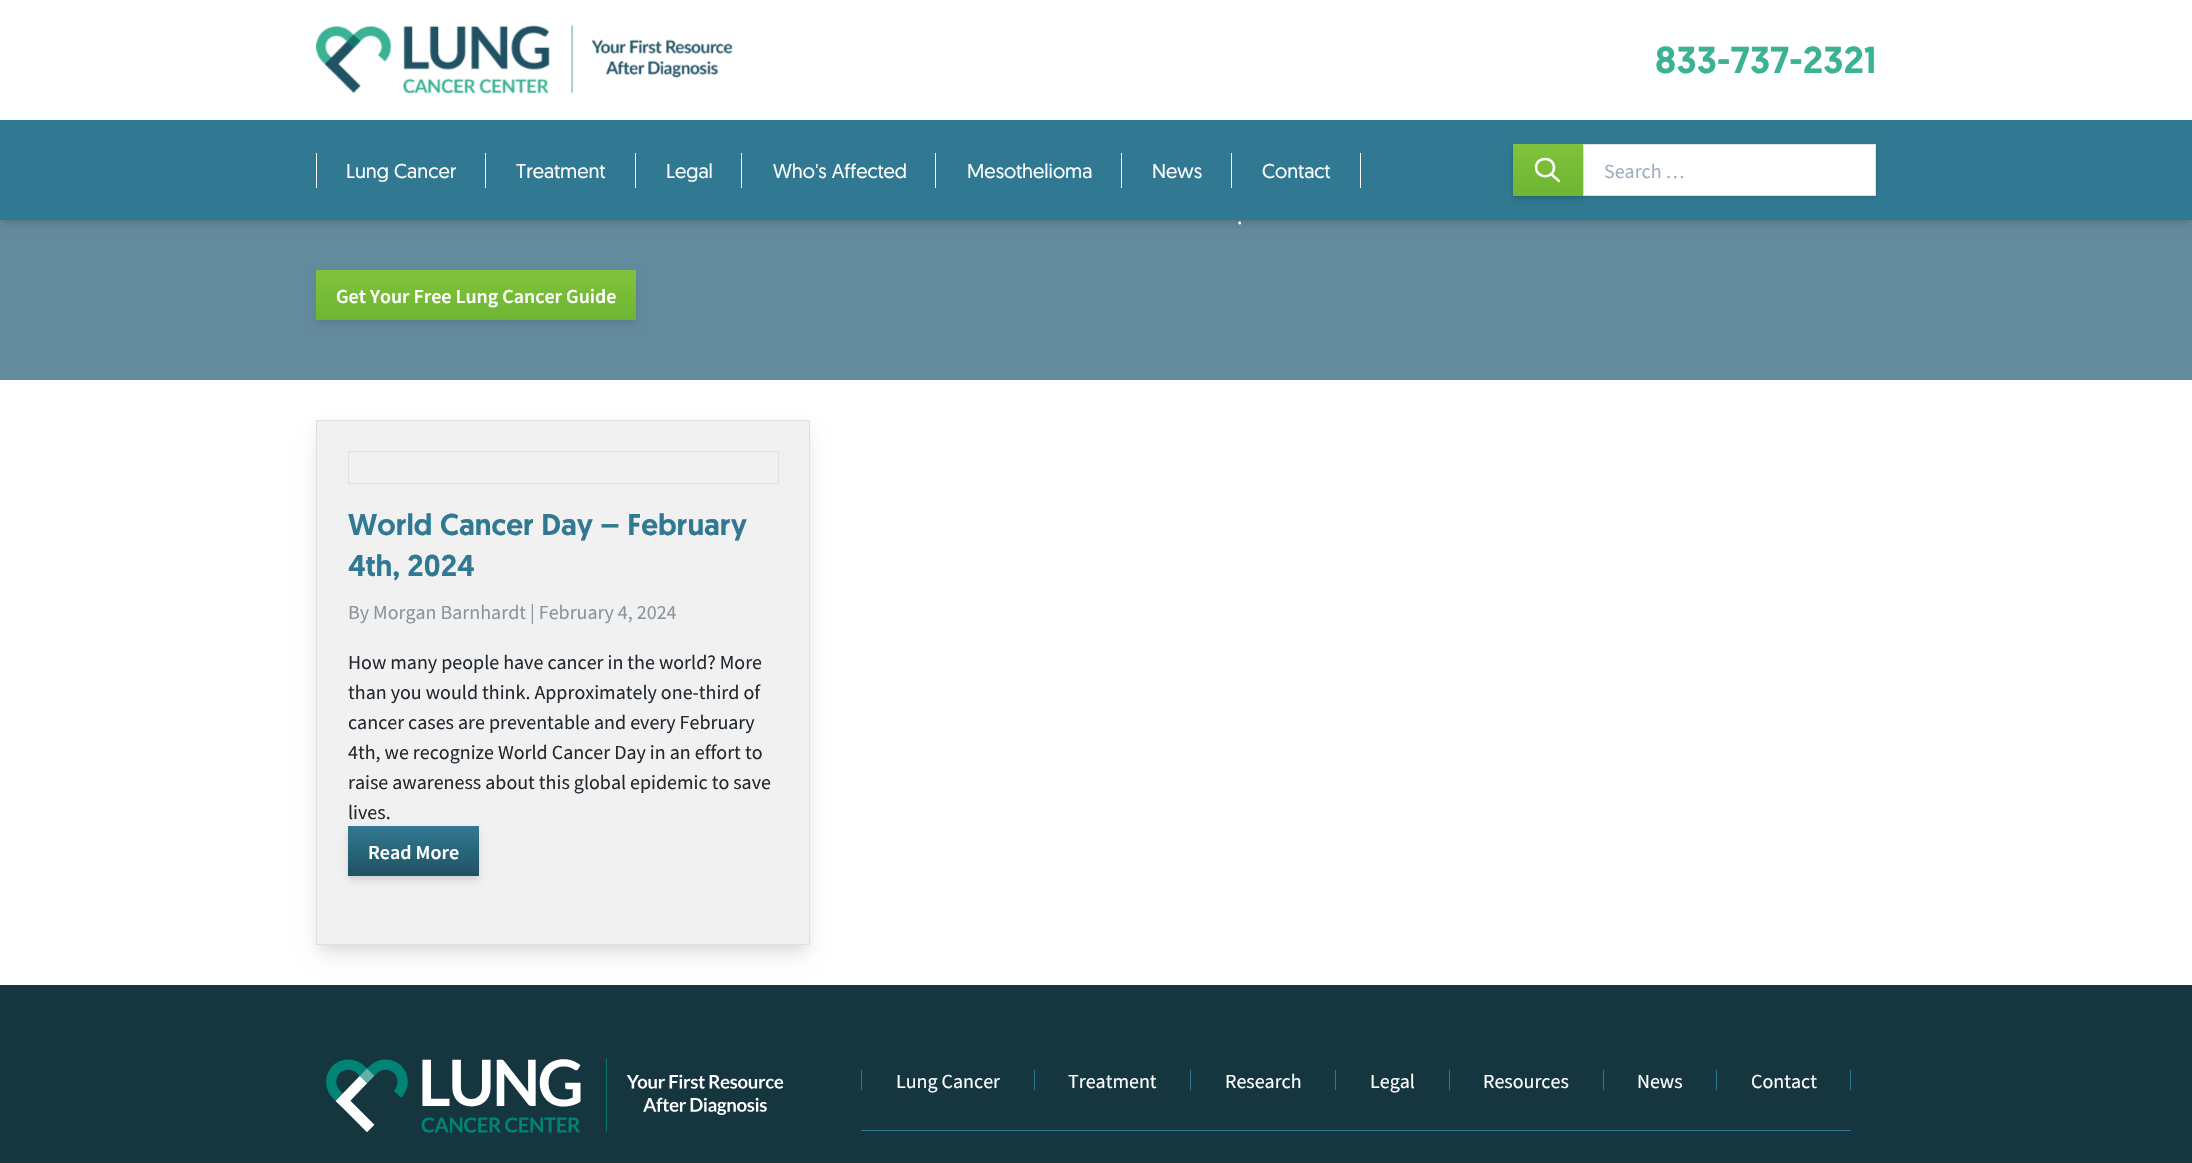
#include "include/core/SkBlurTypes.h"
#include "include/core/SkCanvas.h"
#include "include/core/SkData.h"
#include "include/core/SkFont.h"
#include "include/core/SkFontMgr.h"
#include "include/core/SkImage.h"
#include "include/core/SkMaskFilter.h"
#include "include/core/SkPaint.h"
#include "include/core/SkPathBuilder.h"
#include "include/core/SkTextBlob.h"
#include "include/effects/SkDashPathEffect.h"
#include "include/effects/SkGradientShader.h"
#include "include/utils/SkParsePath.h"

extern sk_sp<SkFontMgr> fontMgr;

void draw(SkCanvas* canvas) {
  SkPaint p;
  p.setAntiAlias(true);
  canvas->clear(SK_ColorWHITE);
  p.setColor(SkColorSetRGB(99, 138, 157));
  canvas->drawRect(SkRect::MakeLTRB(0, 220, 2192, 380), p);
  p.setColor(SkColorSetARGB(15, 0, 0, 0));
  p.setMaskFilter(SkMaskFilter::MakeBlur(kNormal_SkBlurStyle, 2.5f));
  canvas->drawRect(SkRect::MakeLTRB(1, 4, 2191, 221), p);
  p.setMaskFilter(nullptr);
  p.setColor(SkColorSetARGB(26, 0, 0, 0));
  p.setMaskFilter(SkMaskFilter::MakeBlur(kNormal_SkBlurStyle, 4));
  canvas->drawRect(SkRect::MakeLTRB(1, 6, 2191, 224), p);
  p.setMaskFilter(nullptr);
  p.setColor(SK_ColorWHITE);
  canvas->drawRect(SkRect::MakeLTRB(0, 0, 2192, 120), p);
  canvas->drawImageRect(SkImages::DeferredFromEncodedData(SkData::MakeFromFileName("images/1.png")), SkRect::MakeLTRB(316, 24, 733, 94), SkSamplingOptions());
  p.setColor(SkColorSetRGB(49, 121, 146));
  canvas->drawRect(SkRect::MakeLTRB(0, 120, 2192, 220), p);
  p.setColor(SK_ColorWHITE);
  canvas->drawRect(SkRect::MakeLTRB(316, 153, 317, 188), p);
  canvas->drawRect(SkRect::MakeLTRB(485, 153, 486, 188), p);
  canvas->drawRect(SkRect::MakeLTRB(635, 153, 636, 188), p);
  canvas->drawRect(SkRect::MakeLTRB(741, 153, 742, 188), p);
  canvas->drawRect(SkRect::MakeLTRB(935, 153, 936, 188), p);
  canvas->drawRect(SkRect::MakeLTRB(1121, 153, 1122, 188), p);
  canvas->drawRect(SkRect::MakeLTRB(1231, 153, 1232, 188), p);
  canvas->drawRect(SkRect::MakeLTRB(1360, 153, 1361, 188), p);
  p.setColor(SkColorSetARGB(26, 0, 0, 0));
  p.setMaskFilter(SkMaskFilter::MakeBlur(kNormal_SkBlurStyle, 2));
  canvas->drawRect(SkRect::MakeLTRB(1513, 145, 1876, 198), p);
  p.setMaskFilter(nullptr);
  p.setColor(SK_ColorWHITE);
  canvas->drawRect(SkRect::MakeLTRB(1583.5f, 144.5f, 1875.5f, 195.5f), p);
  p.setStyle(SkPaint::kStroke_Style);
  p.setStrokeWidth(1);
  p.setColor(SkColorSetRGB(218, 225, 231));
  canvas->drawRect(SkRect::MakeLTRB(1583.5f, 144.5f, 1875.5f, 195.5f), p);
  p.setStyle(SkPaint::kFill_Style);
  p.setColor(SkColorSetARGB(26, 0, 0, 0));
  p.setMaskFilter(SkMaskFilter::MakeBlur(kNormal_SkBlurStyle, 4));
  canvas->drawRect(SkRect::MakeLTRB(1514, 150, 1581, 200), p);
  p.setMaskFilter(nullptr);
  {
    const SkColor colors[] = {SkColorSetRGB(129, 195, 59), SkColorSetRGB(109, 181, 51)};
    const float stops[] = {0, 1};
    const SkPoint ends[] = {{1548, 144}, {1548, 196}};
    p.setShader(SkGradientShader::MakeLinear(ends, colors, stops, 2, SkTileMode::kClamp));
    p.setAlpha(255);
  }
  canvas->drawRect(SkRect::MakeLTRB(1513, 144, 1583, 196), p);
  p.setStyle(SkPaint::kStroke_Style);
  p.setStrokeWidth(2.5f);
  p.setStrokeCap(SkPaint::kRound_Cap);
  p.setStrokeJoin(SkPaint::kRound_Join);
  p.setShader(nullptr);
  p.setColor(SK_ColorWHITE);
  canvas->drawPath(SkPathBuilder().moveTo(1559, 181).lineTo(1551, 174).moveTo(1554, 167.5f).cubicTo(1554, 179, 1536.5f, 179, 1536, 167.5f).cubicTo(1536, 156, 1554, 156, 1554, 167.5f).close().detach(), p);
  p.setStyle(SkPaint::kFill_Style);
  p.setColor(SkColorSetARGB(26, 0, 0, 0));
  p.setMaskFilter(SkMaskFilter::MakeBlur(kNormal_SkBlurStyle, 4));
  canvas->drawRect(SkRect::MakeLTRB(318, 276, 635, 324), p);
  p.setMaskFilter(nullptr);
  {
    const SkColor colors[] = {SkColorSetRGB(129, 195, 59), SkColorSetRGB(109, 181, 51)};
    const float stops[] = {0, 1};
    const SkPoint ends[] = {{476, 270}, {476, 320}};
    p.setShader(SkGradientShader::MakeLinear(ends, colors, stops, 2, SkTileMode::kClamp));
    p.setAlpha(255);
  }
  canvas->drawRect(SkRect::MakeLTRB(316, 270, 636, 320), p);
  p.setShader(nullptr);
  p.setColor(SkColorSetARGB(13, 0, 0, 0));
  p.setMaskFilter(SkMaskFilter::MakeBlur(kNormal_SkBlurStyle, 4));
  canvas->drawRect(SkRect::MakeLTRB(319, 428, 808, 948), p);
  p.setMaskFilter(nullptr);
  p.setColor(SkColorSetARGB(26, 0, 0, 0));
  p.setMaskFilter(SkMaskFilter::MakeBlur(kNormal_SkBlurStyle, 9.5f));
  canvas->drawRect(SkRect::MakeLTRB(320, 436, 806, 954), p);
  p.setMaskFilter(nullptr);
  p.setColor(SkColorSetRGB(241, 241, 241));
  canvas->drawRect(SkRect::MakeLTRB(316.5f, 420.5f, 809.5f, 944.5f), p);
  p.setStyle(SkPaint::kStroke_Style);
  p.setStrokeWidth(1);
  p.setStrokeCap(SkPaint::kButt_Cap);
  p.setStrokeJoin(SkPaint::kMiter_Join);
  p.setColor(SkColorSetRGB(218, 225, 231));
  canvas->drawRect(SkRect::MakeLTRB(316.5f, 420.5f, 809.5f, 944.5f), p);
  canvas->drawRect(SkRect::MakeLTRB(348.5f, 451.5f, 778.5f, 483.5f), p);
  p.setStyle(SkPaint::kFill_Style);
  p.setColor(SkColorSetARGB(15, 0, 0, 0));
  p.setMaskFilter(SkMaskFilter::MakeBlur(kNormal_SkBlurStyle, 2.5f));
  canvas->drawRect(SkRect::MakeLTRB(349, 830, 478, 878), p);
  p.setMaskFilter(nullptr);
  p.setColor(SkColorSetARGB(26, 0, 0, 0));
  p.setMaskFilter(SkMaskFilter::MakeBlur(kNormal_SkBlurStyle, 4));
  canvas->drawRect(SkRect::MakeLTRB(349, 833, 478, 880), p);
  p.setMaskFilter(nullptr);
  {
    const SkColor colors[] = {SkColorSetRGB(49, 121, 145), SkColorSetRGB(32, 82, 99)};
    const float stops[] = {0, 1};
    const SkPoint ends[] = {{413, 826}, {413, 876}};
    p.setShader(SkGradientShader::MakeLinear(ends, colors, stops, 2, SkTileMode::kClamp));
    p.setAlpha(255);
  }
  canvas->drawRect(SkRect::MakeLTRB(348, 826, 479, 876), p);
  p.setShader(nullptr);
  p.setColor(SkColorSetRGB(21, 54, 63));
  canvas->drawRect(SkRect::MakeLTRB(0, 985, 2192, 1163), p);
  canvas->drawImageRect(SkImages::DeferredFromEncodedData(SkData::MakeFromFileName("images/2.png")), SkRect::MakeLTRB(326, 1058, 784, 1133), SkSamplingOptions());
  p.setColor(SkColorSetRGB(49, 121, 146));
  canvas->drawRect(SkRect::MakeLTRB(861, 1130, 1851, 1131), p);
  canvas->drawRect(SkRect::MakeLTRB(1034, 1070, 1035, 1090), p);
  canvas->drawRect(SkRect::MakeLTRB(861, 1070, 862, 1090), p);
  canvas->drawRect(SkRect::MakeLTRB(1190, 1070, 1191, 1090), p);
  canvas->drawRect(SkRect::MakeLTRB(1335, 1070, 1336, 1090), p);
  canvas->drawRect(SkRect::MakeLTRB(1449, 1070, 1450, 1090), p);
  canvas->drawRect(SkRect::MakeLTRB(1603, 1070, 1604, 1090), p);
  canvas->drawRect(SkRect::MakeLTRB(1716, 1070, 1717, 1090), p);
  canvas->drawRect(SkRect::MakeLTRB(1850, 1070, 1851, 1090), p);
  SkFont font1(fontMgr->matchFamilyStyle("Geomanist", SkFontStyle(500, SkFontStyle::kNormal_Width, SkFontStyle::kUpright_Slant)), 37.5f);
  font1.setSubpixel(true);
  p.setColor(SkColorSetRGB(59, 178, 148));
  canvas->drawString("833-737-2321", 1655, 73, font1, p);
  SkFont font2(fontMgr->matchFamilyStyle("Geomanist", SkFontStyle::Normal()), 20);
  font2.setSubpixel(true);
  p.setColor(SK_ColorWHITE);
  canvas->drawString("Lung Cancer", 346, 178, font2, p);
  canvas->drawString("Treatment", 516, 178, font2, p);
  canvas->drawString("Legal", 666, 178, font2, p);
  canvas->drawString("Who's Affected", 773, 178, font2, p);
  canvas->drawString("Mesothelioma", 967, 178, font2, p);
  canvas->drawString("News", 1152, 178, font2, p);
  canvas->drawString("Contact", 1262, 178, font2, p);
  SkFont font3(fontMgr->matchFamilyStyle("Source Sans Pro", SkFontStyle::Normal()), 20);
  font3.setSubpixel(true);
  p.setColor(SkColorSetRGB(160, 174, 192));
  canvas->drawString("Search …", 1604, 178, font3, p);
  SkFont font4(fontMgr->matchFamilyStyle("Source Sans Pro", SkFontStyle::Normal()), 22);
  font4.setSubpixel(true);
  p.setColor(SK_ColorWHITE);
  canvas->drawString(".", 1237, 224, font4, p);
  SkFont font5(fontMgr->matchFamilyStyle("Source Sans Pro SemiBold", SkFontStyle(600, SkFontStyle::kNormal_Width, SkFontStyle::kUpright_Slant)), 20);
  font5.setSubpixel(true);
  canvas->drawString("Get Your Free Lung Cancer Guide", 336, 303, font5, p);
  SkFont font6(fontMgr->matchFamilyStyle("Geomanist", SkFontStyle(500, SkFontStyle::kNormal_Width, SkFontStyle::kUpright_Slant)), 30);
  font6.setSubpixel(true);
  p.setColor(SkColorSetRGB(49, 121, 146));
  canvas->drawString("World Cancer Day – February", 348, 535, font6, p);
  canvas->drawString("4th, 2024", 348, 576, font6, p);
  p.setColor(SkColorSetRGB(135, 149, 161));
  canvas->drawString("By Morgan Barnhardt | February 4, 2024", 348, 619, font3, p);
  p.setColor(SkColorSetRGB(34, 41, 47));
  canvas->drawString("How many people have cancer in the world? More", 348, 669, font3, p);
  canvas->drawString("than you would think. Approximately one-third of", 348, 699, font3, p);
  canvas->drawString("cancer cases are preventable and every February", 348, 729, font3, p);
  canvas->drawString("4th, we recognize World Cancer Day in an effort to", 348, 759, font3, p);
  canvas->drawString("raise awareness about this global epidemic to save", 348, 789, font3, p);
  canvas->drawString("lives.", 348, 819, font3, p);
  p.setColor(SK_ColorWHITE);
  canvas->drawString("Read More", 368, 859, font5, p);
  canvas->drawString("Lung Cancer", 896, 1088, font3, p);
  canvas->drawString("Treatment", 1068, 1088, font3, p);
  canvas->drawString("Research", 1225, 1088, font3, p);
  canvas->drawString("Legal", 1370, 1088, font3, p);
  canvas->drawString("Resources", 1483, 1088, font3, p);
  canvas->drawString("News", 1637, 1088, font3, p);
  canvas->drawString("Contact", 1751, 1088, font3, p);
}
